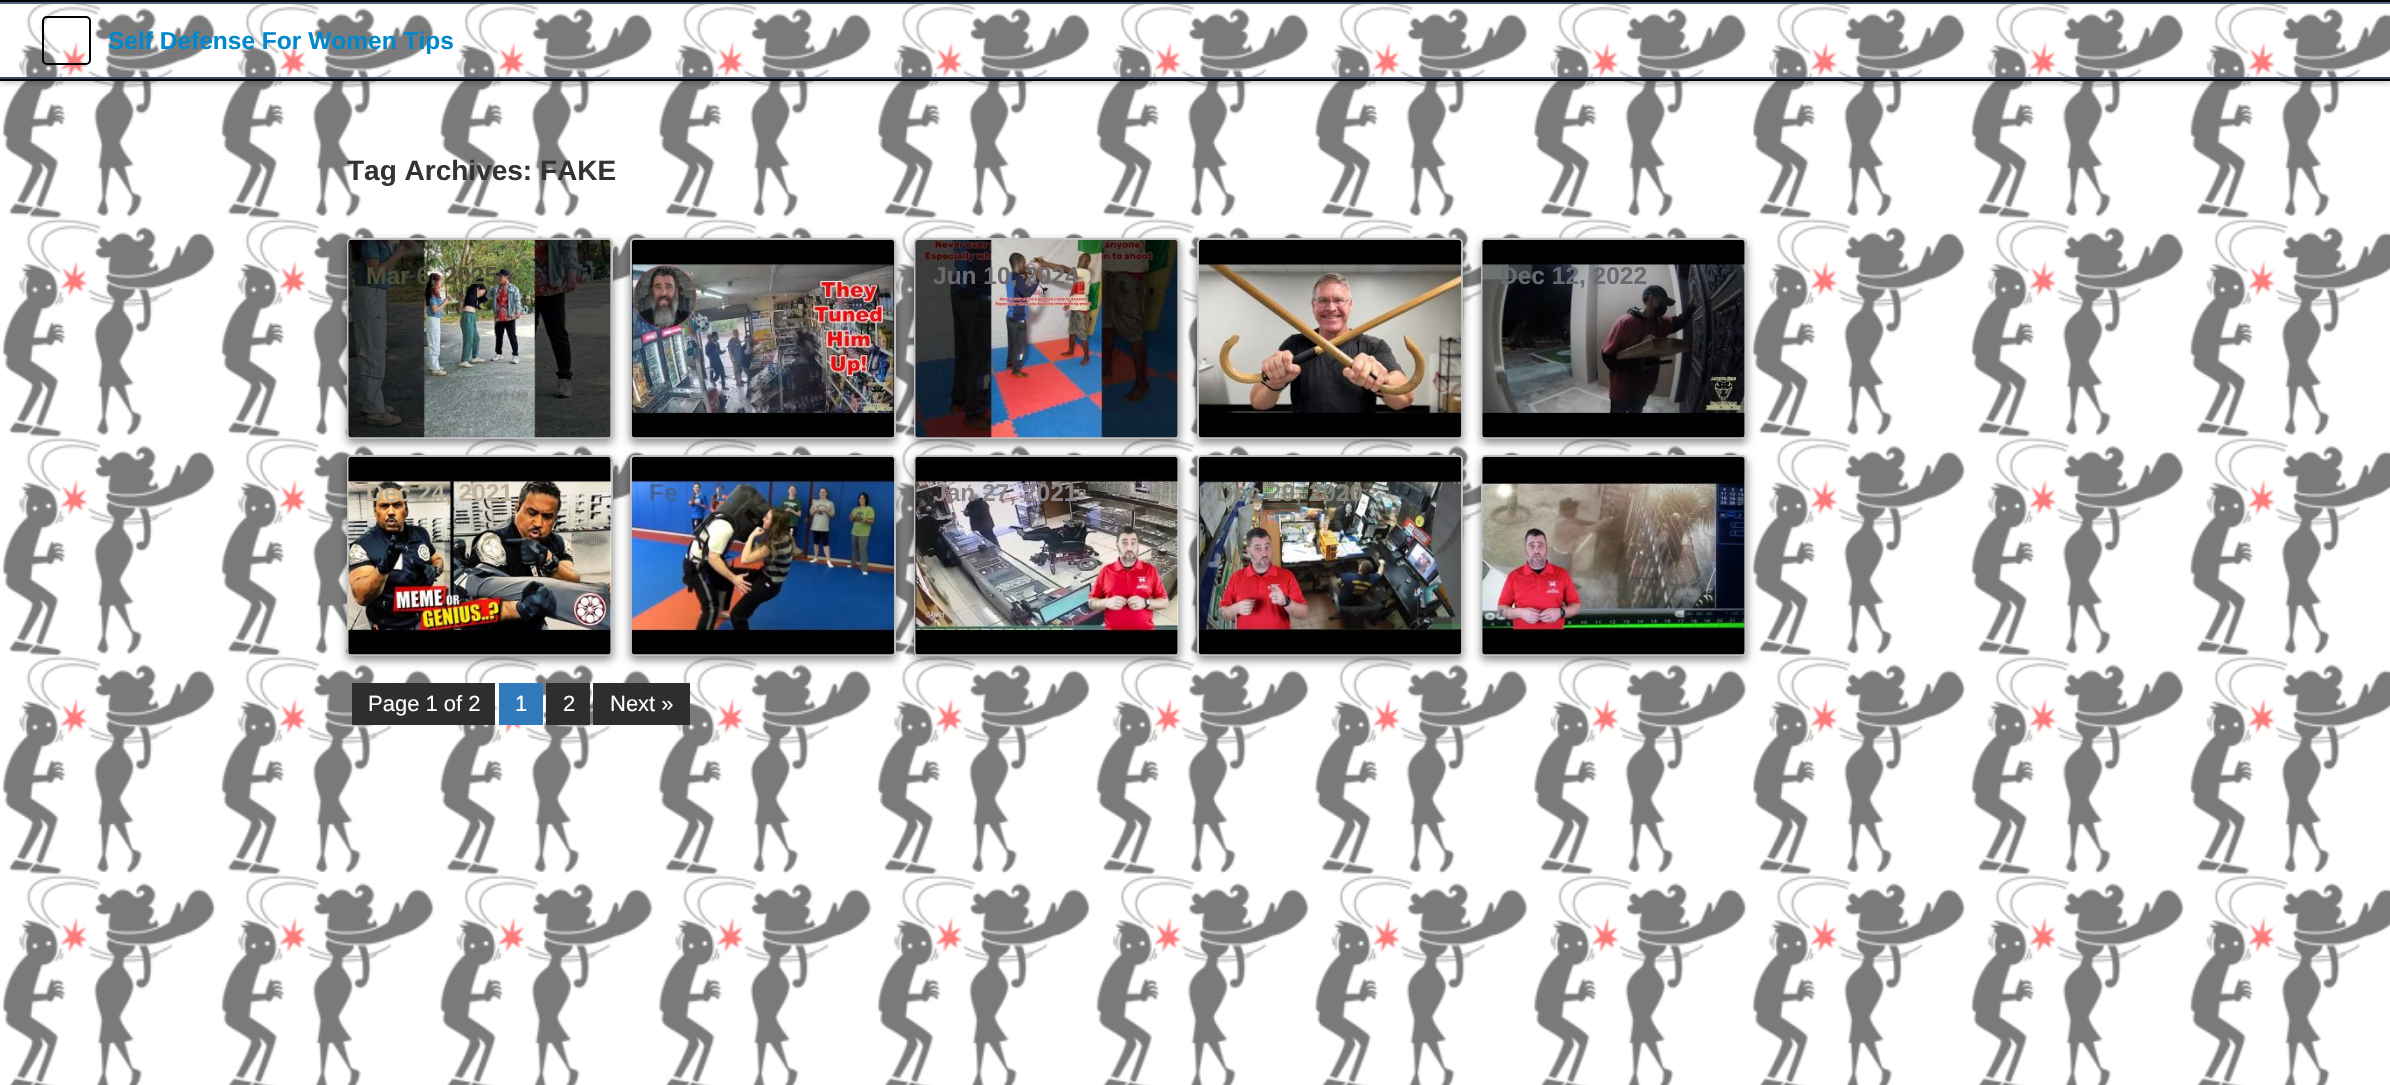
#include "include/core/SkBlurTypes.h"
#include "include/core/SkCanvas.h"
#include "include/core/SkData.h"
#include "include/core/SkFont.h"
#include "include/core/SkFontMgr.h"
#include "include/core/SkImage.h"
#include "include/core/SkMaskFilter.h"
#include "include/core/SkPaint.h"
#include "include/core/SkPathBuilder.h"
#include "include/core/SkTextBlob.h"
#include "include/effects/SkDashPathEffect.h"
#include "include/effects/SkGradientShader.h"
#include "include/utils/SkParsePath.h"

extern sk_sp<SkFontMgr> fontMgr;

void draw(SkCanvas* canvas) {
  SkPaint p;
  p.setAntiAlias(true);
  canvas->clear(SK_ColorWHITE);
  canvas->drawImageRect(SkImages::DeferredFromEncodedData(SkData::MakeFromFileName("images/1.png")), SkRect::MakeLTRB(2, 4, 2390, 1085), SkSamplingOptions());
  canvas->save();
  canvas->clipRect(SkRect::MakeLTRB(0, 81, 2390, 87));
  p.setColor(SkColorSetARGB(77, 0, 0, 0));
  p.setMaskFilter(SkMaskFilter::MakeBlur(kNormal_SkBlurStyle, 3.5f));
  canvas->drawRect(SkRect::MakeLTRB(0, 2, 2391, 82), p);
  p.setMaskFilter(nullptr);
  canvas->restore();
  p.setColor(SkColorSetRGB(54, 78, 103));
  canvas->drawRect(SkRect::MakeLTRB(0, 77, 2390, 79), p);
  p.setColor(SkColorSetRGB(81, 103, 126));
  canvas->drawRect(SkRect::MakeLTRB(0, 2, 2390, 4), p);
  p.setColor(SK_ColorBLACK);
  canvas->drawRect(SkRect::MakeLTRB(0, 0, 2390, 2), p);
  canvas->drawRect(SkRect::MakeLTRB(0, 79, 2390, 81), p);
  canvas->drawImageRect(SkImages::DeferredFromEncodedData(SkData::MakeFromFileName("images/2.png")), SkRect::MakeLTRB(32, 36, 34, 39), SkSamplingOptions());
  p.setStyle(SkPaint::kStroke_Style);
  p.setStrokeWidth(2);
  canvas->drawRoundRect(SkRect::MakeLTRB(43, 17, 90, 64), 4, 4, p);
  p.setStyle(SkPaint::kFill_Style);
  p.setColor(SkColorSetARGB(117, 0, 0, 0));
  p.setMaskFilter(SkMaskFilter::MakeBlur(kNormal_SkBlurStyle, 4.5f));
  canvas->drawRoundRect(SkRect::MakeLTRB(347, 242, 613, 443), 5, 5, p);
  p.setMaskFilter(nullptr);
  p.setColor(SK_ColorWHITE);
  canvas->drawRoundRect(SkRect::MakeLTRB(348, 239, 612, 438), 4, 4, p);
  p.setStyle(SkPaint::kStroke_Style);
  p.setColor(SkColorSetRGB(194, 194, 194));
  canvas->drawRoundRect(SkRect::MakeLTRB(348, 239, 612, 438), 4, 4, p);
  canvas->drawImageRect(SkImages::DeferredFromEncodedData(SkData::MakeFromFileName("images/3.png")), SkRect::MakeLTRB(348, 239, 611, 438), SkSamplingOptions());
  p.setStyle(SkPaint::kFill_Style);
  p.setColor(SkColorSetARGB(117, 0, 0, 0));
  p.setMaskFilter(SkMaskFilter::MakeBlur(kNormal_SkBlurStyle, 4.5f));
  canvas->drawRoundRect(SkRect::MakeLTRB(630, 242, 896, 443), 5, 5, p);
  p.setMaskFilter(nullptr);
  p.setStyle(SkPaint::kStroke_Style);
  p.setColor(SkColorSetRGB(194, 194, 194));
  canvas->drawRoundRect(SkRect::MakeLTRB(631, 239, 895, 438), 4, 4, p);
  canvas->drawImageRect(SkImages::DeferredFromEncodedData(SkData::MakeFromFileName("images/4.png")), SkRect::MakeLTRB(631, 239, 895, 438), SkSamplingOptions());
  p.setStyle(SkPaint::kFill_Style);
  p.setColor(SkColorSetARGB(117, 0, 0, 0));
  p.setMaskFilter(SkMaskFilter::MakeBlur(kNormal_SkBlurStyle, 4.5f));
  canvas->drawRoundRect(SkRect::MakeLTRB(914, 242, 1180, 443), 5, 5, p);
  p.setMaskFilter(nullptr);
  p.setColor(SK_ColorWHITE);
  canvas->drawRoundRect(SkRect::MakeLTRB(915, 239, 1179, 438), 4, 4, p);
  p.setStyle(SkPaint::kStroke_Style);
  p.setColor(SkColorSetRGB(194, 194, 194));
  canvas->drawRoundRect(SkRect::MakeLTRB(915, 239, 1179, 438), 4, 4, p);
  canvas->drawImageRect(SkImages::DeferredFromEncodedData(SkData::MakeFromFileName("images/5.png")), SkRect::MakeLTRB(915, 239, 1178, 438), SkSamplingOptions());
  p.setStyle(SkPaint::kFill_Style);
  p.setColor(SkColorSetARGB(117, 0, 0, 0));
  p.setMaskFilter(SkMaskFilter::MakeBlur(kNormal_SkBlurStyle, 4.5f));
  canvas->drawRoundRect(SkRect::MakeLTRB(1197, 242, 1463, 443), 5, 5, p);
  p.setMaskFilter(nullptr);
  p.setStyle(SkPaint::kStroke_Style);
  p.setColor(SkColorSetRGB(194, 194, 194));
  canvas->drawRoundRect(SkRect::MakeLTRB(1198, 239, 1462, 438), 4, 4, p);
  canvas->drawImageRect(SkImages::DeferredFromEncodedData(SkData::MakeFromFileName("images/6.png")), SkRect::MakeLTRB(1198, 239, 1462, 438), SkSamplingOptions());
  p.setStyle(SkPaint::kFill_Style);
  p.setColor(SkColorSetARGB(117, 0, 0, 0));
  p.setMaskFilter(SkMaskFilter::MakeBlur(kNormal_SkBlurStyle, 4.5f));
  canvas->drawRoundRect(SkRect::MakeLTRB(1481, 242, 1747, 443), 5, 5, p);
  p.setMaskFilter(nullptr);
  p.setColor(SK_ColorWHITE);
  canvas->drawRoundRect(SkRect::MakeLTRB(1482, 239, 1746, 438), 4, 4, p);
  p.setStyle(SkPaint::kStroke_Style);
  p.setColor(SkColorSetRGB(194, 194, 194));
  canvas->drawRoundRect(SkRect::MakeLTRB(1482, 239, 1746, 438), 4, 4, p);
  canvas->drawImageRect(SkImages::DeferredFromEncodedData(SkData::MakeFromFileName("images/7.png")), SkRect::MakeLTRB(1482, 239, 1745, 438), SkSamplingOptions());
  p.setStyle(SkPaint::kFill_Style);
  p.setColor(SkColorSetARGB(117, 0, 0, 0));
  p.setMaskFilter(SkMaskFilter::MakeBlur(kNormal_SkBlurStyle, 4.5f));
  canvas->drawRoundRect(SkRect::MakeLTRB(347, 459, 613, 660), 5, 5, p);
  p.setMaskFilter(nullptr);
  p.setColor(SK_ColorWHITE);
  canvas->drawRoundRect(SkRect::MakeLTRB(348, 456, 612, 655), 4, 4, p);
  p.setStyle(SkPaint::kStroke_Style);
  p.setColor(SkColorSetRGB(194, 194, 194));
  canvas->drawRoundRect(SkRect::MakeLTRB(348, 456, 612, 655), 4, 4, p);
  canvas->drawImageRect(SkImages::DeferredFromEncodedData(SkData::MakeFromFileName("images/8.png")), SkRect::MakeLTRB(348, 456, 611, 655), SkSamplingOptions());
  p.setStyle(SkPaint::kFill_Style);
  p.setColor(SkColorSetARGB(117, 0, 0, 0));
  p.setMaskFilter(SkMaskFilter::MakeBlur(kNormal_SkBlurStyle, 4.5f));
  canvas->drawRoundRect(SkRect::MakeLTRB(630, 459, 896, 660), 5, 5, p);
  p.setMaskFilter(nullptr);
  p.setStyle(SkPaint::kStroke_Style);
  p.setColor(SkColorSetRGB(194, 194, 194));
  canvas->drawRoundRect(SkRect::MakeLTRB(631, 456, 895, 655), 4, 4, p);
  canvas->drawImageRect(SkImages::DeferredFromEncodedData(SkData::MakeFromFileName("images/9.png")), SkRect::MakeLTRB(631, 456, 895, 655), SkSamplingOptions());
  p.setStyle(SkPaint::kFill_Style);
  p.setColor(SkColorSetARGB(117, 0, 0, 0));
  p.setMaskFilter(SkMaskFilter::MakeBlur(kNormal_SkBlurStyle, 4.5f));
  canvas->drawRoundRect(SkRect::MakeLTRB(914, 459, 1180, 660), 5, 5, p);
  p.setMaskFilter(nullptr);
  p.setColor(SK_ColorWHITE);
  canvas->drawRoundRect(SkRect::MakeLTRB(915, 456, 1179, 655), 4, 4, p);
  p.setStyle(SkPaint::kStroke_Style);
  p.setColor(SkColorSetRGB(194, 194, 194));
  canvas->drawRoundRect(SkRect::MakeLTRB(915, 456, 1179, 655), 4, 4, p);
  canvas->drawImageRect(SkImages::DeferredFromEncodedData(SkData::MakeFromFileName("images/10.png")), SkRect::MakeLTRB(915, 456, 1178, 655), SkSamplingOptions());
  p.setStyle(SkPaint::kFill_Style);
  p.setColor(SkColorSetARGB(117, 0, 0, 0));
  p.setMaskFilter(SkMaskFilter::MakeBlur(kNormal_SkBlurStyle, 4.5f));
  canvas->drawRoundRect(SkRect::MakeLTRB(1197, 459, 1463, 660), 5, 5, p);
  p.setMaskFilter(nullptr);
  p.setStyle(SkPaint::kStroke_Style);
  p.setColor(SkColorSetRGB(194, 194, 194));
  canvas->drawRoundRect(SkRect::MakeLTRB(1198, 456, 1462, 655), 4, 4, p);
  canvas->drawImageRect(SkImages::DeferredFromEncodedData(SkData::MakeFromFileName("images/11.png")), SkRect::MakeLTRB(1198, 456, 1462, 655), SkSamplingOptions());
  p.setStyle(SkPaint::kFill_Style);
  p.setColor(SkColorSetARGB(117, 0, 0, 0));
  p.setMaskFilter(SkMaskFilter::MakeBlur(kNormal_SkBlurStyle, 4.5f));
  canvas->drawRoundRect(SkRect::MakeLTRB(1481, 459, 1747, 660), 5, 5, p);
  p.setMaskFilter(nullptr);
  p.setColor(SK_ColorWHITE);
  canvas->drawRoundRect(SkRect::MakeLTRB(1482, 456, 1746, 655), 4, 4, p);
  p.setStyle(SkPaint::kStroke_Style);
  p.setColor(SkColorSetRGB(194, 194, 194));
  canvas->drawRoundRect(SkRect::MakeLTRB(1482, 456, 1746, 655), 4, 4, p);
  canvas->drawImageRect(SkImages::DeferredFromEncodedData(SkData::MakeFromFileName("images/12.png")), SkRect::MakeLTRB(1482, 456, 1745, 655), SkSamplingOptions());
  p.setStyle(SkPaint::kFill_Style);
  p.setColor(SkColorSetRGB(46, 46, 46));
  canvas->drawRect(SkRect::MakeLTRB(352, 683, 495, 725), p);
  p.setColor(SkColorSetRGB(50, 121, 187));
  canvas->drawRect(SkRect::MakeLTRB(499, 683, 543, 725), p);
  p.setColor(SkColorSetRGB(46, 46, 46));
  canvas->drawRect(SkRect::MakeLTRB(546, 683, 590, 725), p);
  canvas->drawRect(SkRect::MakeLTRB(593, 683, 690, 725), p);
  SkFont font1(fontMgr->matchFamilyStyle("Liberation Sans", SkFontStyle::Bold()), 24.5f);
  font1.setSubpixel(true);
  p.setColor(SkColorSetRGB(0, 136, 204));
  canvas->drawString("Self Defense For Women Tips", 108, 49, font1, p);
  SkFont font2(fontMgr->matchFamilyStyle("Liberation Sans", SkFontStyle::Bold()), 28);
  font2.setSubpixel(true);
  p.setColor(SkColorSetRGB(51, 51, 51));
  canvas->drawString("Tag Archives: FAKE", 347, 180, font2, p);
  p.setColor(SkColorSetRGB(78, 79, 56));
  canvas->drawString("Mar 6, 2025", 366, 284, font1, p);
  p.setColor(SkColorSetRGB(110, 105, 106));
  canvas->drawString("Jun 10, 2024", 933, 284, font1, p);
  p.setColor(SkColorSetRGB(103, 106, 110));
  canvas->drawString("Dec 12, 2022", 1500, 284, font1, p);
  p.setColor(SkColorSetRGB(187, 175, 155));
  canvas->drawString("Dec 24, 2021", 366, 501, font1, p);
  p.setColor(SkColorSetRGB(65, 100, 156));
  canvas->drawString("Fe", 649, 501, font1, p);
  canvas->drawString("1,", 713, 501, font1, p);
  p.setColor(SkColorSetRGB(140, 131, 136));
  canvas->drawString("Jan 27, 2021", 933, 501, font1, p);
  p.setColor(SkColorSetRGB(130, 132, 122));
  canvas->drawString("Dec 29, 2020", 1216, 501, font1, p);
  SkFont font3(fontMgr->matchFamilyStyle("Liberation Sans", SkFontStyle::Normal()), 22);
  font3.setSubpixel(true);
  p.setColor(SK_ColorWHITE);
  canvas->drawString("Page 1 of 2", 368, 711, font3, p);
  canvas->drawString("1", 515, 711, font3, p);
  canvas->drawString("2", 563, 711, font3, p);
  canvas->drawString("Next »", 610, 711, font3, p);
}
